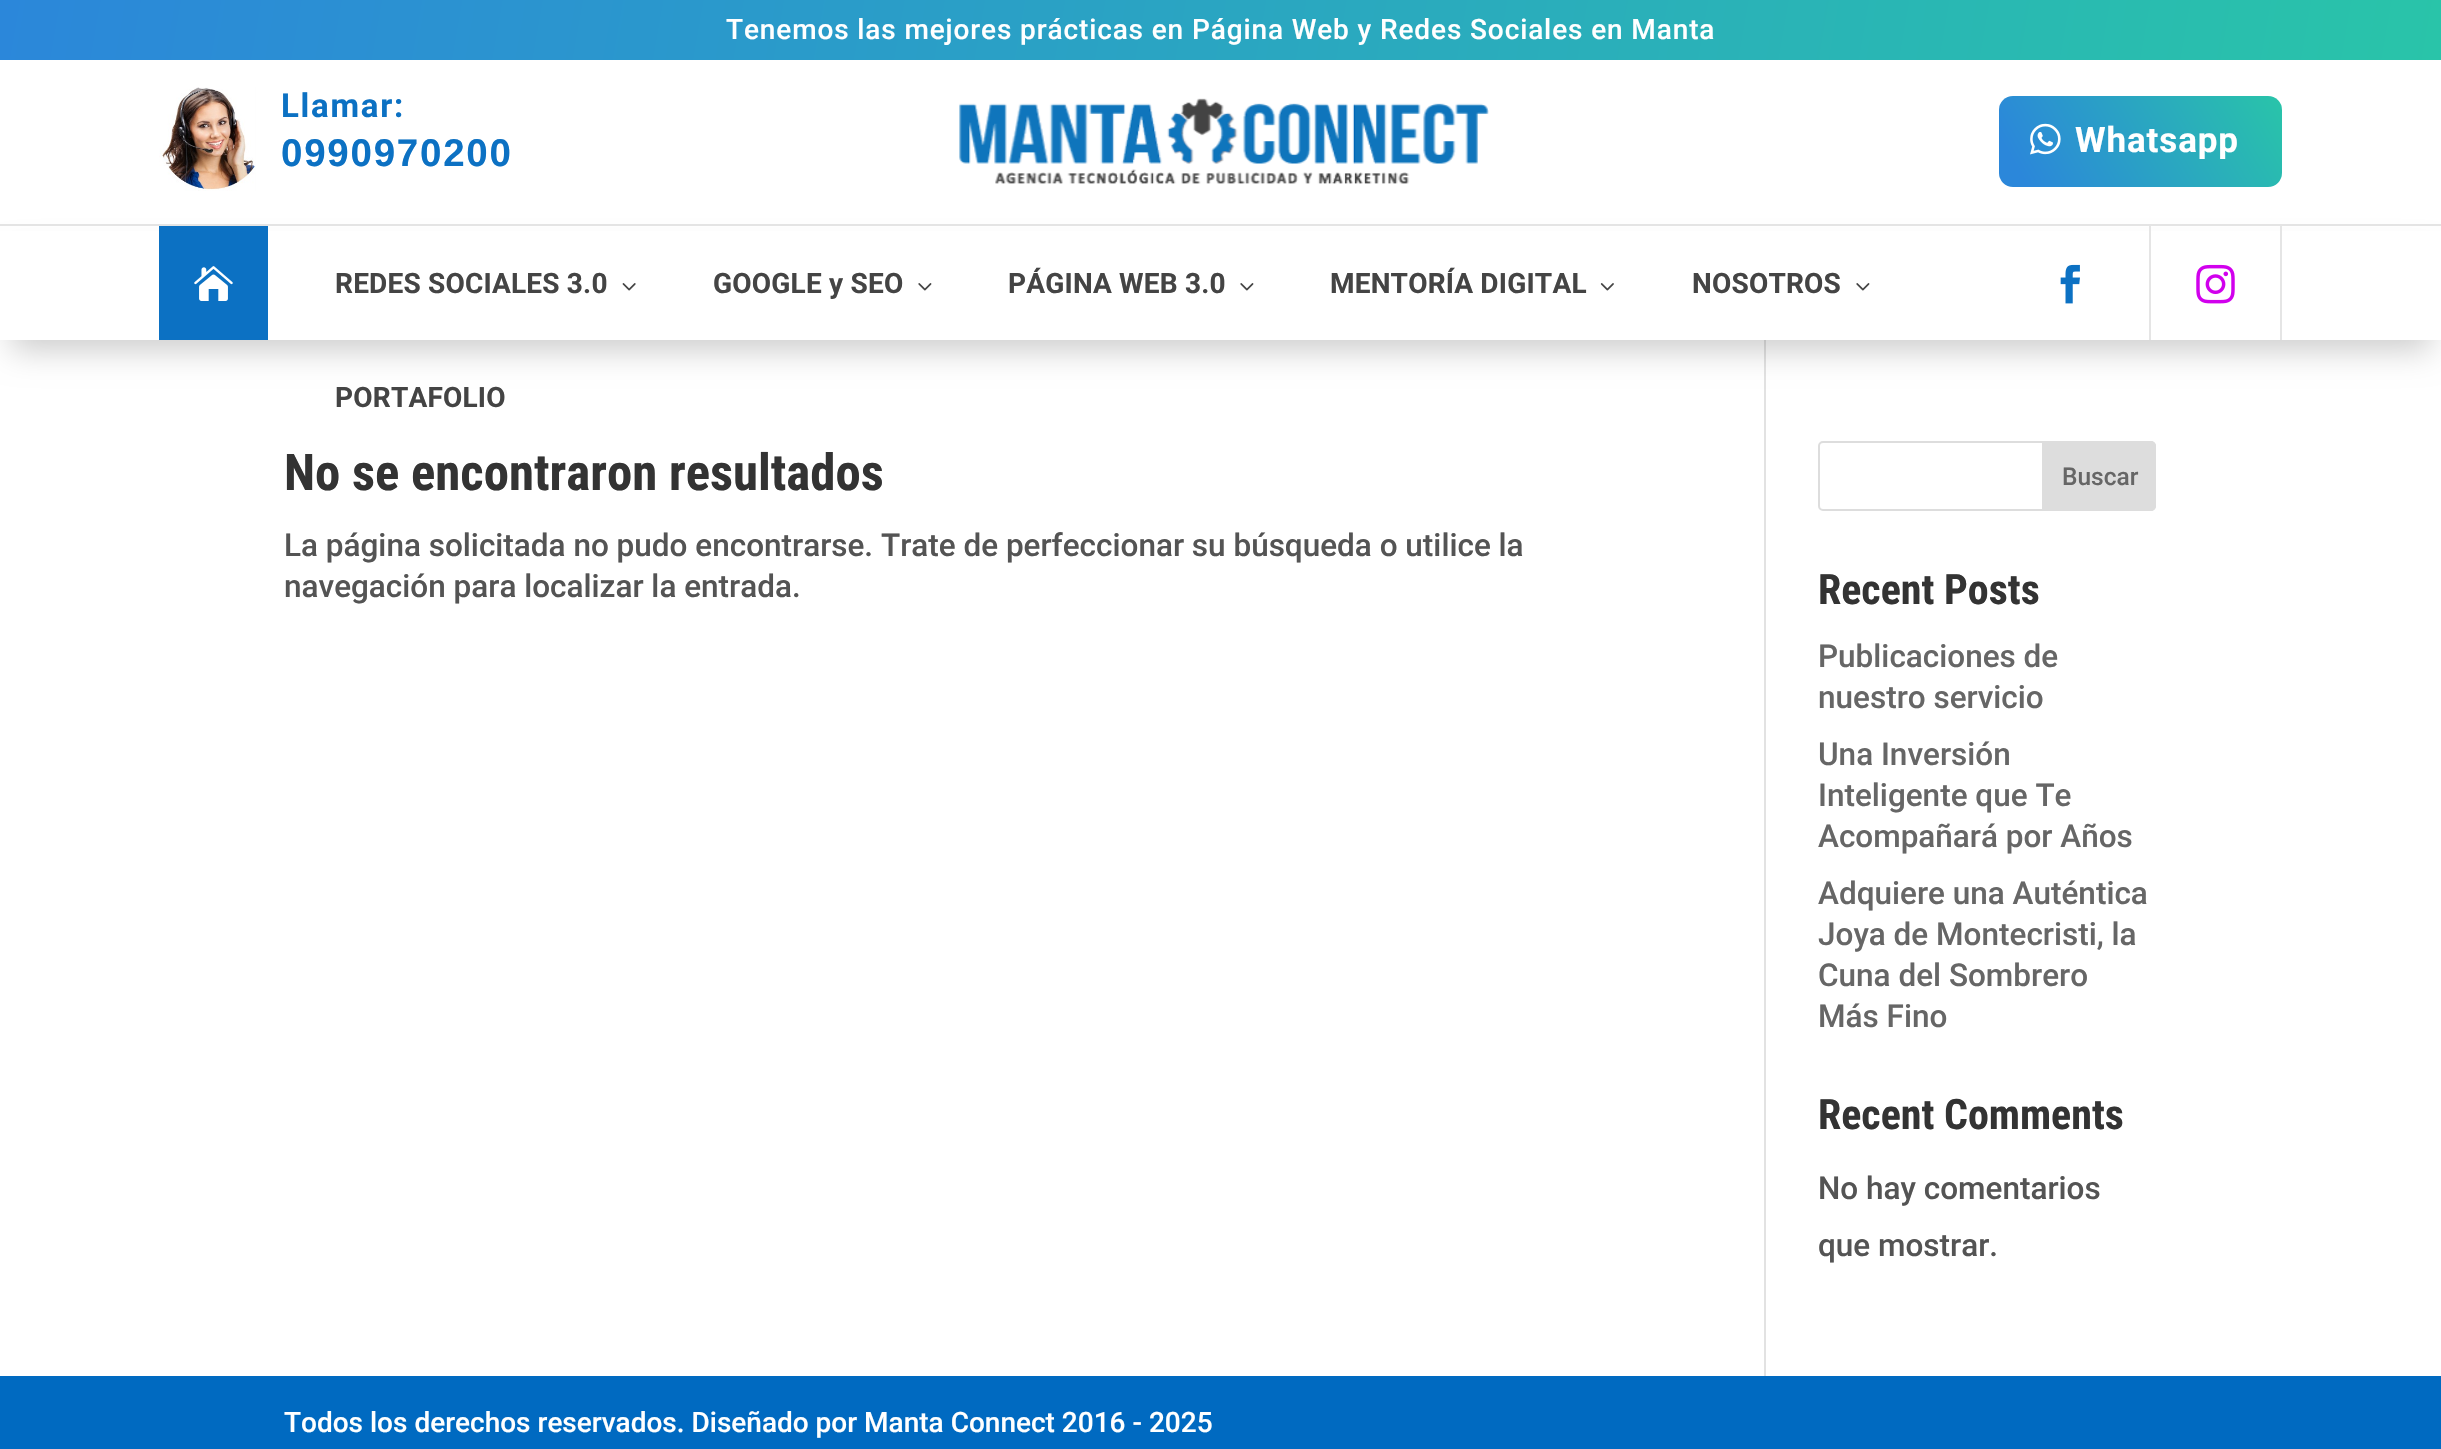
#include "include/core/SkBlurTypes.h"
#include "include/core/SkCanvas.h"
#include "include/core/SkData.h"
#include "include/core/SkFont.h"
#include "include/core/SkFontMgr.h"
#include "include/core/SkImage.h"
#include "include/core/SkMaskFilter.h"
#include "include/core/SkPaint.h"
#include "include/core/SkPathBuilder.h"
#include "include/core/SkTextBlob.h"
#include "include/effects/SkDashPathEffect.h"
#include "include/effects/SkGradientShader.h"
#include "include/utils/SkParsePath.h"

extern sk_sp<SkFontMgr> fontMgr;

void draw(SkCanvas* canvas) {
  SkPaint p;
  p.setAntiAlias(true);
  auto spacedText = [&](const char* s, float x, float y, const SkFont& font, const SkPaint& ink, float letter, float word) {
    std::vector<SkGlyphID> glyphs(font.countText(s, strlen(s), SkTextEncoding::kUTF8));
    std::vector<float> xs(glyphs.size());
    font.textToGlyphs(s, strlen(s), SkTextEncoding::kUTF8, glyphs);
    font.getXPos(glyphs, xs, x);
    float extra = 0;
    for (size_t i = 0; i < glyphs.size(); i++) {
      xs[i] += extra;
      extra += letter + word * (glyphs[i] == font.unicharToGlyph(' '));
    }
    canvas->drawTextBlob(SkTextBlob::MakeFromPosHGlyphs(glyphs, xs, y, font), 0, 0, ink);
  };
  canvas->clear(SK_ColorWHITE);
  {
    const SkColor colors[] = {SkColorSetRGB(43, 135, 218), SkColorSetRGB(41, 196, 169)};
    const float stops[] = {0, 1};
    const SkPoint ends[] = {{32, -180}, {2410, 239}};
    p.setShader(SkGradientShader::MakeLinear(ends, colors, stops, 2, SkTileMode::kClamp));
    p.setAlpha(255);
  }
  canvas->drawRect(SkRect::MakeLTRB(0, 0, 2441, 60), p);
  p.setShader(nullptr);
  p.setColor(SkColorSetRGB(229, 229, 229));
  canvas->drawRect(SkRect::MakeLTRB(0, 224, 2441, 226), p);
  canvas->drawImageRect(SkImages::DeferredFromEncodedData(SkData::MakeFromFileName("images/1.png")), SkRect::MakeLTRB(159, 87, 256, 191), SkSamplingOptions());
  canvas->drawImageRect(SkImages::DeferredFromEncodedData(SkData::MakeFromFileName("images/2.png")), SkRect::MakeLTRB(959, 98, 1489, 184), SkSamplingOptions());
  {
    const SkColor colors[] = {SkColorSetRGB(43, 135, 218), SkColorSetRGB(41, 196, 169)};
    const float stops[] = {0.09f, 1};
    const SkPoint ends[] = {{2014, 215}, {2266, 69}};
    p.setShader(SkGradientShader::MakeLinear(ends, colors, stops, 2, SkTileMode::kClamp));
    p.setAlpha(255);
  }
  canvas->drawRoundRect(SkRect::MakeLTRB(1999, 96, 2282, 187), 14, 14, p);
  canvas->drawImageRect(SkImages::DeferredFromEncodedData(SkData::MakeFromFileName("images/3.png")), SkRect::MakeLTRB(2030, 123, 2061, 155), SkSamplingOptions());
  p.setShader(nullptr);
  p.setColor(SkColorSetRGB(226, 226, 226));
  canvas->drawRect(SkRect::MakeLTRB(1764, 340, 1766, 1376), p);
  p.setColor(SkColorSetARGB(51, 0, 0, 0));
  p.setMaskFilter(SkMaskFilter::MakeBlur(kNormal_SkBlurStyle, 16));
  canvas->drawRect(SkRect::MakeLTRB(11, 257, 2431, 350), p);
  p.setMaskFilter(nullptr);
  p.setColor(SK_ColorWHITE);
  canvas->drawRect(SkRect::MakeLTRB(0, 231, 2441, 340), p);
  p.setColor(SkColorSetRGB(12, 113, 195));
  canvas->drawRect(SkRect::MakeLTRB(159, 226, 268, 340), p);
  canvas->drawImageRect(SkImages::DeferredFromEncodedData(SkData::MakeFromFileName("images/4.png")), SkRect::MakeLTRB(194, 266, 233, 301), SkSamplingOptions());
  canvas->drawImageRect(SkImages::DeferredFromEncodedData(SkData::MakeFromFileName("images/5.png")), SkRect::MakeLTRB(622, 283, 636, 291), SkSamplingOptions());
  canvas->drawImageRect(SkImages::DeferredFromEncodedData(SkData::MakeFromFileName("images/6.png")), SkRect::MakeLTRB(918, 283, 932, 291), SkSamplingOptions());
  canvas->drawImageRect(SkImages::DeferredFromEncodedData(SkData::MakeFromFileName("images/6.png")), SkRect::MakeLTRB(1240, 283, 1254, 291), SkSamplingOptions());
  canvas->drawImageRect(SkImages::DeferredFromEncodedData(SkData::MakeFromFileName("images/7.png")), SkRect::MakeLTRB(1600, 283, 1614, 291), SkSamplingOptions());
  canvas->drawImageRect(SkImages::DeferredFromEncodedData(SkData::MakeFromFileName("images/6.png")), SkRect::MakeLTRB(1856, 283, 1870, 291), SkSamplingOptions());
  p.setColor(SkColorSetRGB(229, 229, 229));
  canvas->drawRect(SkRect::MakeLTRB(2149, 226, 2151, 340), p);
  canvas->drawImageRect(SkImages::DeferredFromEncodedData(SkData::MakeFromFileName("images/8.png")), SkRect::MakeLTRB(2060, 264, 2080, 304), SkSamplingOptions());
  canvas->drawRect(SkRect::MakeLTRB(2280, 226, 2282, 340), p);
  canvas->drawImageRect(SkImages::DeferredFromEncodedData(SkData::MakeFromFileName("images/9.png")), SkRect::MakeLTRB(2196, 264, 2235, 304), SkSamplingOptions());
  p.setStyle(SkPaint::kStroke_Style);
  p.setStrokeWidth(2);
  p.setColor(SkColorSetRGB(221, 221, 221));
  canvas->drawRoundRect(SkRect::MakeLTRB(1819, 442, 2155, 510), 4, 4, p);
  p.setStyle(SkPaint::kFill_Style);
  canvas->drawPath(SkPathBuilder().moveTo(2043, 442).lineTo(2151, 442).cubicTo(2153, 442, 2155, 444, 2155, 446).lineTo(2155, 506).cubicTo(2155, 508, 2153, 510, 2151, 510).lineTo(2043, 510).close().detach(), p);
  p.setStyle(SkPaint::kStroke_Style);
  canvas->drawPath(SkPathBuilder().moveTo(2043, 442).lineTo(2151, 442).cubicTo(2153, 442, 2155, 444, 2155, 446).lineTo(2155, 506).cubicTo(2155, 508, 2153, 510, 2151, 510).lineTo(2043, 510).close().detach(), p);
  p.setStyle(SkPaint::kFill_Style);
  p.setColor(SkColorSetRGB(0, 106, 193));
  canvas->drawRect(SkRect::MakeLTRB(0, 1376, 2441, 1449), p);
  SkFont font1(fontMgr->matchFamilyStyle("Roboto", SkFontStyle(500, SkFontStyle::kNormal_Width, SkFontStyle::kUpright_Slant)), 28);
  font1.setSubpixel(true);
  p.setColor(SK_ColorWHITE);
  spacedText("Tenemos las mejores prácticas en Página Web y Redes Sociales en Manta", 726, 39, font1, p, 0.88f, 0);
  SkFont font2(fontMgr->matchFamilyStyle("Roboto", SkFontStyle::Bold()), 33);
  font2.setSubpixel(true);
  p.setColor(SkColorSetRGB(12, 113, 195));
  spacedText("Llamar:", 281, 117, font2, p, 1.75f, 0);
  SkFont font3(fontMgr->matchFamilyStyle("Liberation Sans", SkFontStyle::Bold()), 38.5f);
  font3.setSubpixel(true);
  spacedText("0990970200", 281, 166, font3, p, 1.75f, 0);
  SkFont font4(fontMgr->matchFamilyStyle("Roboto", SkFontStyle::Bold()), 35);
  font4.setSubpixel(true);
  p.setColor(SK_ColorWHITE);
  spacedText("Whatsapp", 2075, 152, font4, p, 0.88f, 0);
  SkFont font5(fontMgr->matchFamilyStyle("Roboto", SkFontStyle::Bold()), 28);
  font5.setSubpixel(true);
  p.setColor(SkColorSetRGB(68, 68, 68));
  spacedText("REDES SOCIALES 3.0", 335, 293, font5, p, 0.2f, 0);
  spacedText("GOOGLE y SEO", 713, 293, font5, p, 0.2f, 0);
  spacedText("PÁGINA WEB 3.0", 1008, 293, font5, p, 0.2f, 0);
  spacedText("MENTORÍA DIGITAL", 1330, 293, font5, p, 0.2f, 0);
  spacedText("NOSOTROS", 1692, 293, font5, p, 0.2f, 0);
  spacedText("PORTAFOLIO", 335, 407, font5, p, 0.2f, 0);
  SkFont font6(fontMgr->matchFamilyStyle("Roboto Condensed", SkFontStyle::Bold()), 50.75f);
  font6.setSubpixel(true);
  p.setColor(SkColorSetRGB(51, 51, 51));
  canvas->drawString("No se encontraron resultados", 284, 490, font6, p);
  SkFont font7(fontMgr->matchFamilyStyle("Roboto", SkFontStyle(500, SkFontStyle::kNormal_Width, SkFontStyle::kUpright_Slant)), 31.5f);
  font7.setSubpixel(true);
  p.setColor(SkColorSetRGB(84, 84, 84));
  canvas->drawString("La página solicitada no pudo encontrarse. Trate de perfeccionar su búsqueda o utilice la", 284, 556, font7, p);
  canvas->drawString("navegación para localizar la entrada.", 284, 597, font7, p);
  SkFont font8(fontMgr->matchFamilyStyle("Roboto", SkFontStyle(500, SkFontStyle::kNormal_Width, SkFontStyle::kUpright_Slant)), 24.5f);
  font8.setSubpixel(true);
  p.setColor(SkColorSetRGB(102, 102, 102));
  canvas->drawString("Buscar", 2062, 485, font8, p);
  SkFont font9(fontMgr->matchFamilyStyle("Roboto Condensed", SkFontStyle::Bold()), 42);
  font9.setSubpixel(true);
  p.setColor(SkColorSetRGB(51, 51, 51));
  canvas->drawString("Recent Posts", 1818, 604, font9, p);
  p.setColor(SkColorSetRGB(102, 102, 102));
  canvas->drawString("Publicaciones de", 1818, 667, font7, p);
  canvas->drawString("nuestro servicio", 1818, 708, font7, p);
  canvas->drawString("Una Inversión", 1818, 765, font7, p);
  canvas->drawString("Inteligente que Te", 1818, 806, font7, p);
  canvas->drawString("Acompañará por Años", 1818, 847, font7, p);
  canvas->drawString("Adquiere una Auténtica", 1818, 904, font7, p);
  canvas->drawString("Joya de Montecristi, la", 1818, 945, font7, p);
  canvas->drawString("Cuna del Sombrero", 1818, 986, font7, p);
  canvas->drawString("Más Fino", 1818, 1027, font7, p);
  p.setColor(SkColorSetRGB(51, 51, 51));
  canvas->drawString("Recent Comments", 1818, 1129, font9, p);
  p.setColor(SkColorSetRGB(84, 84, 84));
  canvas->drawString("No hay comentarios", 1818, 1199, font7, p);
  canvas->drawString("que mostrar.", 1818, 1256, font7, p);
  p.setColor(SK_ColorWHITE);
  canvas->drawString("Todos los derechos reservados. Diseñado por Manta Connect 2016 - 2025", 284, 1432, font1, p);
}
